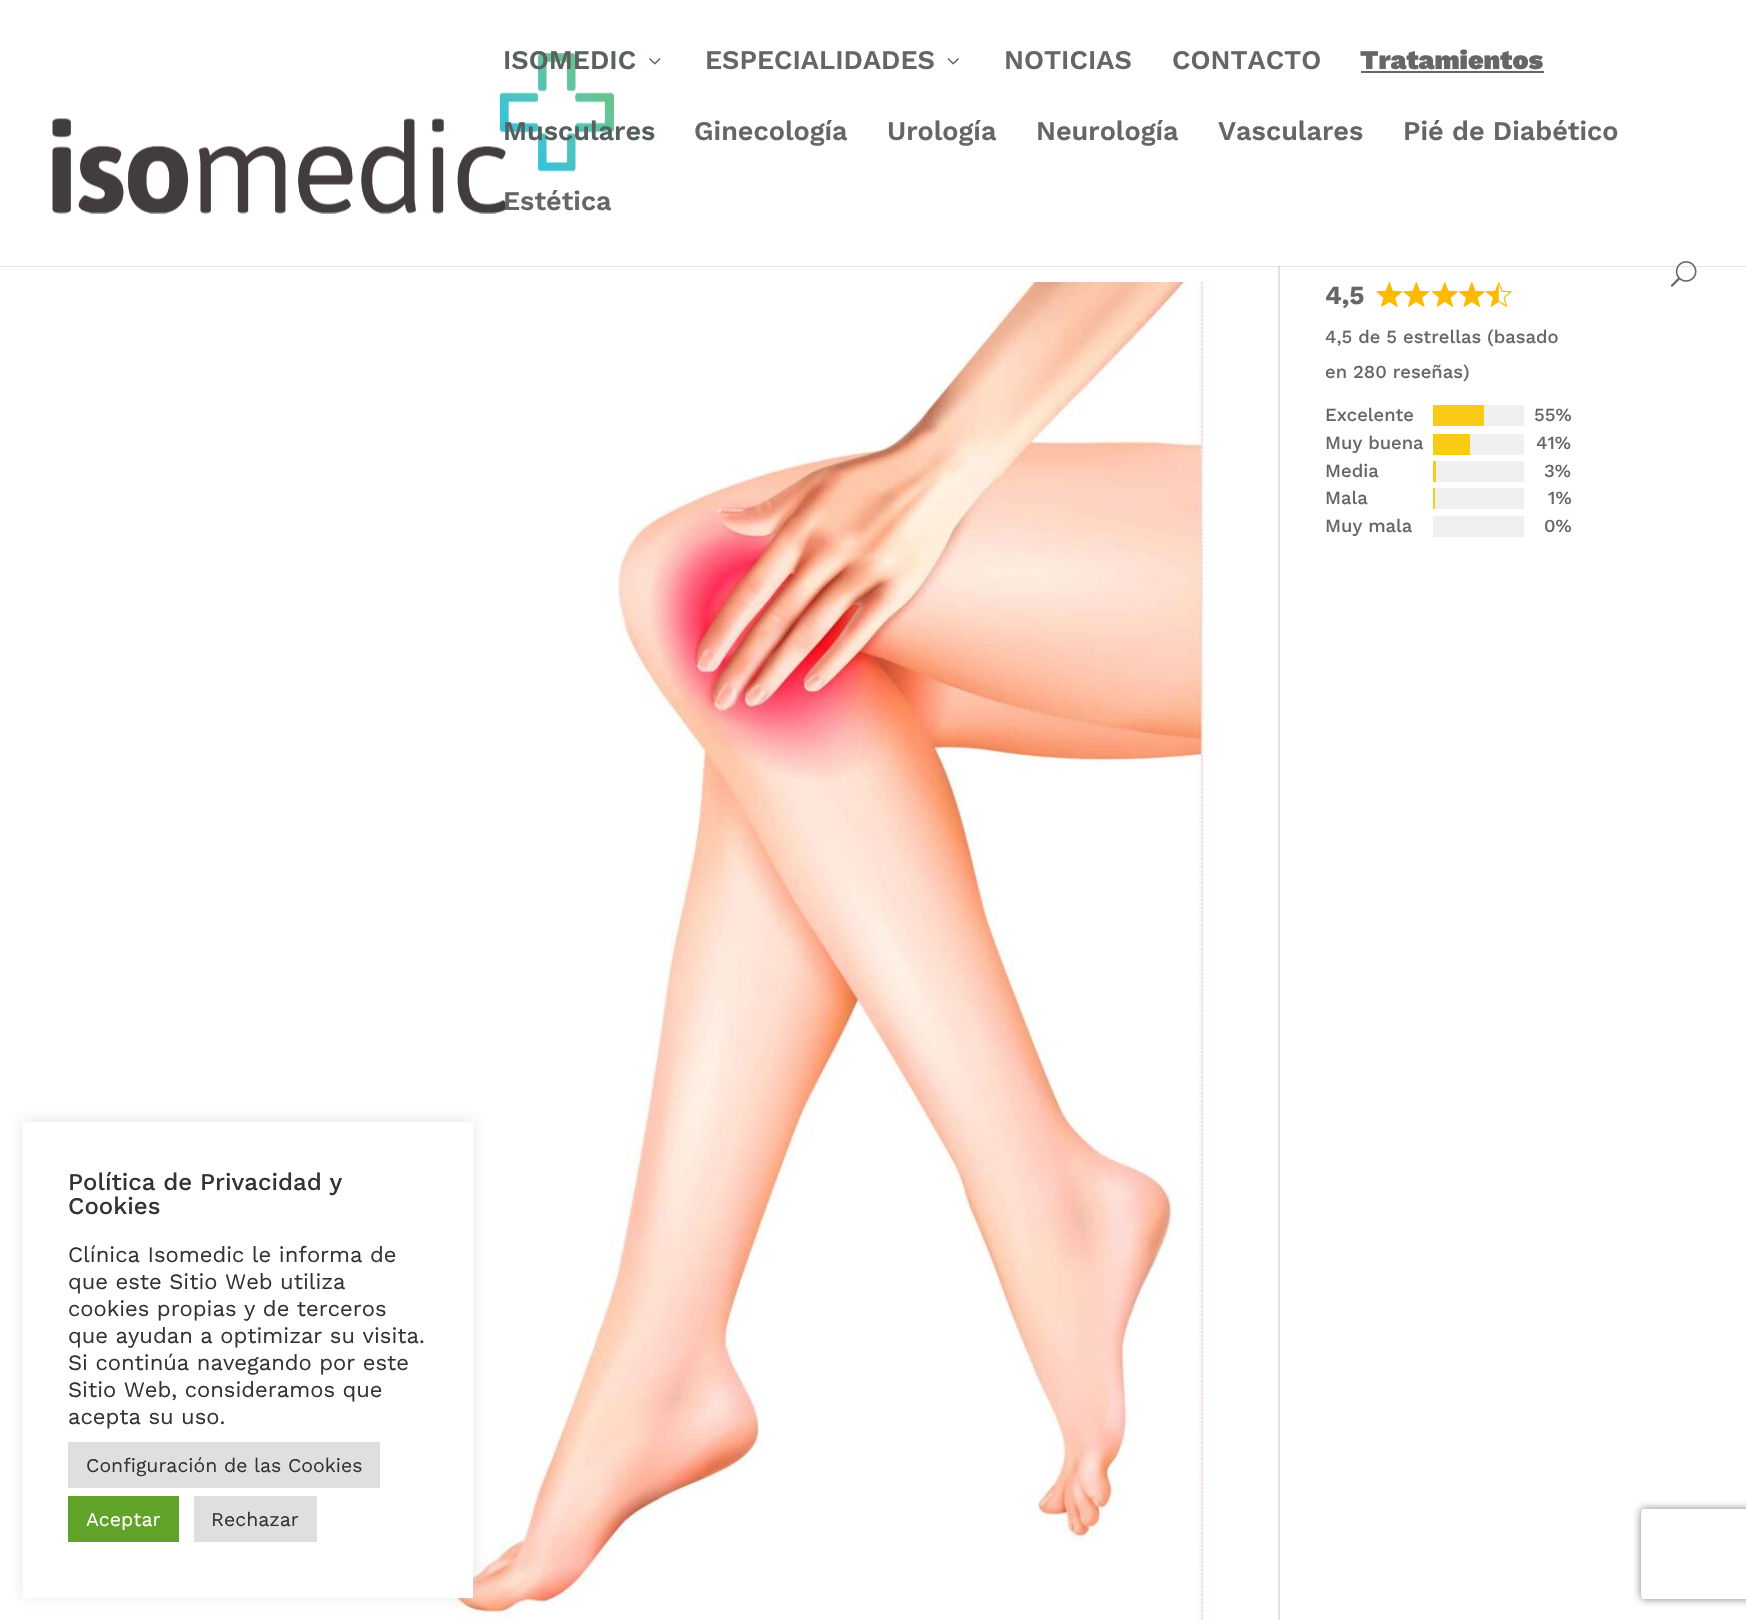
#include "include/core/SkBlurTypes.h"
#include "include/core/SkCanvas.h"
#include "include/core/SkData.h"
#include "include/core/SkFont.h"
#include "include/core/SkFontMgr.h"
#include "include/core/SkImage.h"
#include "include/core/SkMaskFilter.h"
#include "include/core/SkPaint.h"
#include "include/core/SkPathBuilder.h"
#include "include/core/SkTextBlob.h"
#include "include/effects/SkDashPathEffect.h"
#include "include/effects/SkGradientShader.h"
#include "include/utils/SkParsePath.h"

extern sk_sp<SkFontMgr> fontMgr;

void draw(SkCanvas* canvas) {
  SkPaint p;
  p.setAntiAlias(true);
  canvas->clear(SK_ColorWHITE);
  p.setColor(SkColorSetRGB(230, 230, 230));
  canvas->drawRect(SkRect::MakeLTRB(0, 266, 1746, 267), p);
  canvas->drawImageRect(SkImages::DeferredFromEncodedData(SkData::MakeFromFileName("images/1.png")), SkRect::MakeLTRB(52, 53, 614, 214), SkSamplingOptions());
  canvas->drawImageRect(SkImages::DeferredFromEncodedData(SkData::MakeFromFileName("images/2.png")), SkRect::MakeLTRB(649, 58, 661, 65), SkSamplingOptions());
  canvas->drawImageRect(SkImages::DeferredFromEncodedData(SkData::MakeFromFileName("images/3.png")), SkRect::MakeLTRB(947, 58, 959, 65), SkSamplingOptions());
  p.setColor(SkColorSetRGB(102, 102, 102));
  canvas->drawRect(SkRect::MakeLTRB(1361, 71, 1544, 73), p);
  canvas->drawImageRect(SkImages::DeferredFromEncodedData(SkData::MakeFromFileName("images/4.png")), SkRect::MakeLTRB(1670, 261, 1697, 287), SkSamplingOptions());
  p.setColor(SkColorSetRGB(226, 226, 226));
  canvas->drawRect(SkRect::MakeLTRB(1278, 267, 1280, 1620), p);
  p.setColor(SkColorSetRGB(203, 203, 203));
  canvas->drawRect(SkRect::MakeLTRB(1278, 266, 1280, 267), p);
  canvas->drawImageRect(SkImages::DeferredFromEncodedData(SkData::MakeFromFileName("images/5.png")), SkRect::MakeLTRB(443, 282, 1203, 1620), SkSamplingOptions());
  canvas->drawImageRect(SkImages::DeferredFromEncodedData(SkData::MakeFromFileName("images/6.png")), SkRect::MakeLTRB(1376, 282, 1403, 307), SkSamplingOptions());
  canvas->drawImageRect(SkImages::DeferredFromEncodedData(SkData::MakeFromFileName("images/6.png")), SkRect::MakeLTRB(1403, 282, 1430, 307), SkSamplingOptions());
  canvas->drawImageRect(SkImages::DeferredFromEncodedData(SkData::MakeFromFileName("images/7.png")), SkRect::MakeLTRB(1431, 282, 1458, 307), SkSamplingOptions());
  canvas->drawImageRect(SkImages::DeferredFromEncodedData(SkData::MakeFromFileName("images/7.png")), SkRect::MakeLTRB(1458, 282, 1485, 307), SkSamplingOptions());
  canvas->drawImageRect(SkImages::DeferredFromEncodedData(SkData::MakeFromFileName("images/8.png")), SkRect::MakeLTRB(1485, 282, 1512, 307), SkSamplingOptions());
  p.setColor(SkColorSetRGB(250, 202, 21));
  canvas->drawRect(SkRect::MakeLTRB(1433, 405, 1484, 426), p);
  p.setColor(SkColorSetRGB(240, 240, 240));
  canvas->drawRect(SkRect::MakeLTRB(1484, 405, 1524, 426), p);
  p.setColor(SkColorSetRGB(250, 202, 21));
  canvas->drawRect(SkRect::MakeLTRB(1433, 434, 1470, 455), p);
  p.setColor(SkColorSetRGB(240, 240, 240));
  canvas->drawRect(SkRect::MakeLTRB(1470, 434, 1524, 455), p);
  p.setColor(SkColorSetRGB(250, 202, 21));
  canvas->drawRect(SkRect::MakeLTRB(1433, 461, 1436, 482), p);
  p.setColor(SkColorSetRGB(240, 240, 240));
  canvas->drawRect(SkRect::MakeLTRB(1436, 461, 1524, 482), p);
  p.setColor(SkColorSetRGB(250, 202, 21));
  canvas->drawRect(SkRect::MakeLTRB(1433, 488, 1435, 509), p);
  p.setColor(SkColorSetRGB(240, 240, 240));
  canvas->drawRect(SkRect::MakeLTRB(1435, 488, 1524, 509), p);
  canvas->drawRect(SkRect::MakeLTRB(1433, 516, 1524, 537), p);
  p.setColor(SkColorSetARGB(77, 172, 171, 171));
  p.setMaskFilter(SkMaskFilter::MakeBlur(kNormal_SkBlurStyle, 7.5f));
  canvas->drawRect(SkRect::MakeLTRB(23, 1121, 473, 1596), p);
  p.setMaskFilter(nullptr);
  p.setColor(SK_ColorWHITE);
  canvas->drawRect(SkRect::MakeLTRB(23, 1122, 473, 1598), p);
  p.setColor(SkColorSetRGB(222, 223, 224));
  canvas->drawRect(SkRect::MakeLTRB(68, 1442, 380, 1488), p);
  p.setColor(SkColorSetRGB(97, 162, 41));
  canvas->drawRect(SkRect::MakeLTRB(68, 1496, 179, 1542), p);
  p.setColor(SkColorSetRGB(222, 223, 224));
  canvas->drawRect(SkRect::MakeLTRB(194, 1496, 317, 1542), p);
  canvas->save();
  canvas->clipPath(SkPathBuilder(SkPathFillType::kEvenOdd).moveTo(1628, 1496).lineTo(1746, 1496).lineTo(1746, 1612).lineTo(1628, 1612).close().moveTo(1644, 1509).lineTo(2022, 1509).cubicTo(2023.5f, 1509, 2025, 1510.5f, 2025, 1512).lineTo(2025, 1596).cubicTo(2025, 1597.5f, 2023.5f, 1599, 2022, 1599).lineTo(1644, 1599).cubicTo(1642.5f, 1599, 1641, 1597.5f, 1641, 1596).lineTo(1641, 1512).cubicTo(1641, 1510.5f, 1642.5f, 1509, 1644, 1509).close().detach(), true);
  p.setColor(SkColorSetRGB(128, 128, 128));
  p.setMaskFilter(SkMaskFilter::MakeBlur(kNormal_SkBlurStyle, 4));
  canvas->drawRoundRect(SkRect::MakeLTRB(1641, 1509, 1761, 1599), 3, 3, p);
  p.setMaskFilter(nullptr);
  canvas->restore();
  SkFont font1(fontMgr->matchFamilyStyle("Work Sans", SkFontStyle(600, SkFontStyle::kNormal_Width, SkFontStyle::kUpright_Slant)), 27);
  font1.setSubpixel(true);
  p.setColor(SkColorSetRGB(90, 97, 94));
  canvas->drawString("ISOMEDIC", 503, 69, font1, p);
  p.setColor(SkColorSetRGB(102, 102, 102));
  canvas->drawString("ESPECIALIDADES", 705, 69, font1, p);
  canvas->drawString("NOTICIAS", 1004, 69, font1, p);
  canvas->drawString("CONTACTO", 1172, 69, font1, p);
  SkFont font2(fontMgr->matchFamilyStyle("Work Sans", SkFontStyle(900, SkFontStyle::kNormal_Width, SkFontStyle::kUpright_Slant)), 27);
  font2.setSubpixel(true);
  canvas->drawString("Tratamientos", 1360, 69, font2, p);
  p.setColor(SkColorSetRGB(84, 96, 96));
  canvas->drawString("Musculares", 503, 140, font1, p);
  p.setColor(SkColorSetRGB(102, 102, 102));
  canvas->drawString("Ginecología", 694, 140, font1, p);
  canvas->drawString("Urología", 887, 140, font1, p);
  canvas->drawString("Neurología", 1036, 140, font1, p);
  canvas->drawString("Vasculares", 1218, 140, font1, p);
  canvas->drawString("Pié de Diabético", 1403, 140, font1, p);
  canvas->drawString("Estética", 503, 210, font1, p);
  SkFont font3(fontMgr->matchFamilyStyle("Work Sans", SkFontStyle::Bold()), 26);
  font3.setSubpixel(true);
  canvas->drawString("4,5", 1325, 304, font3, p);
  SkFont font4(fontMgr->matchFamilyStyle("Work Sans", SkFontStyle(500, SkFontStyle::kNormal_Width, SkFontStyle::kUpright_Slant)), 18.4f);
  font4.setSubpixel(true);
  canvas->drawString("4,5 de 5 estrellas (basado", 1325, 343, font4, p);
  canvas->drawString("en 280 reseñas)", 1325, 378, font4, p);
  canvas->drawString("Excelente", 1325, 421, font4, p);
  canvas->drawString("55%", 1534, 421, font4, p);
  canvas->drawString("Muy buena", 1325, 449, font4, p);
  canvas->drawString("41%", 1536, 449, font4, p);
  canvas->drawString("Media", 1325, 477, font4, p);
  canvas->drawString("3%", 1544, 477, font4, p);
  canvas->drawString("Mala", 1325, 504, font4, p);
  canvas->drawString("1%", 1548, 504, font4, p);
  canvas->drawString("Muy mala", 1325, 532, font4, p);
  canvas->drawString("0%", 1544, 532, font4, p);
  SkFont font5(fontMgr->matchFamilyStyle("Work Sans", SkFontStyle(500, SkFontStyle::kNormal_Width, SkFontStyle::kUpright_Slant)), 24);
  font5.setSubpixel(true);
  p.setColor(SkColorSetRGB(51, 51, 51));
  canvas->drawString("Política de Privacidad y", 68, 1190, font5, p);
  canvas->drawString("Cookies", 68, 1214, font5, p);
  SkFont font6(fontMgr->matchFamilyStyle("Work Sans", SkFontStyle::Normal()), 22);
  font6.setSubpixel(true);
  canvas->drawString("Clínica Isomedic le informa de", 68, 1262, font6, p);
  canvas->drawString("que este Sitio Web utiliza", 68, 1289, font6, p);
  canvas->drawString("cookies propias y de terceros", 68, 1316, font6, p);
  canvas->drawString("que ayudan a optimizar su visita.", 68, 1343, font6, p);
  canvas->drawString("Si continúa navegando por este", 68, 1370, font6, p);
  canvas->drawString("Sitio Web, consideramos que", 68, 1397, font6, p);
  canvas->drawString("acepta su uso.", 68, 1424, font6, p);
  SkFont font7(fontMgr->matchFamilyStyle("Work Sans", SkFontStyle::Normal()), 19.5f);
  font7.setSubpixel(true);
  canvas->drawString("Configuración de las Cookies", 86, 1472, font7, p);
  p.setColor(SK_ColorWHITE);
  canvas->drawString("Aceptar", 86, 1526, font7, p);
  p.setColor(SkColorSetRGB(51, 51, 51));
  canvas->drawString("Rechazar", 211, 1526, font7, p);
}
